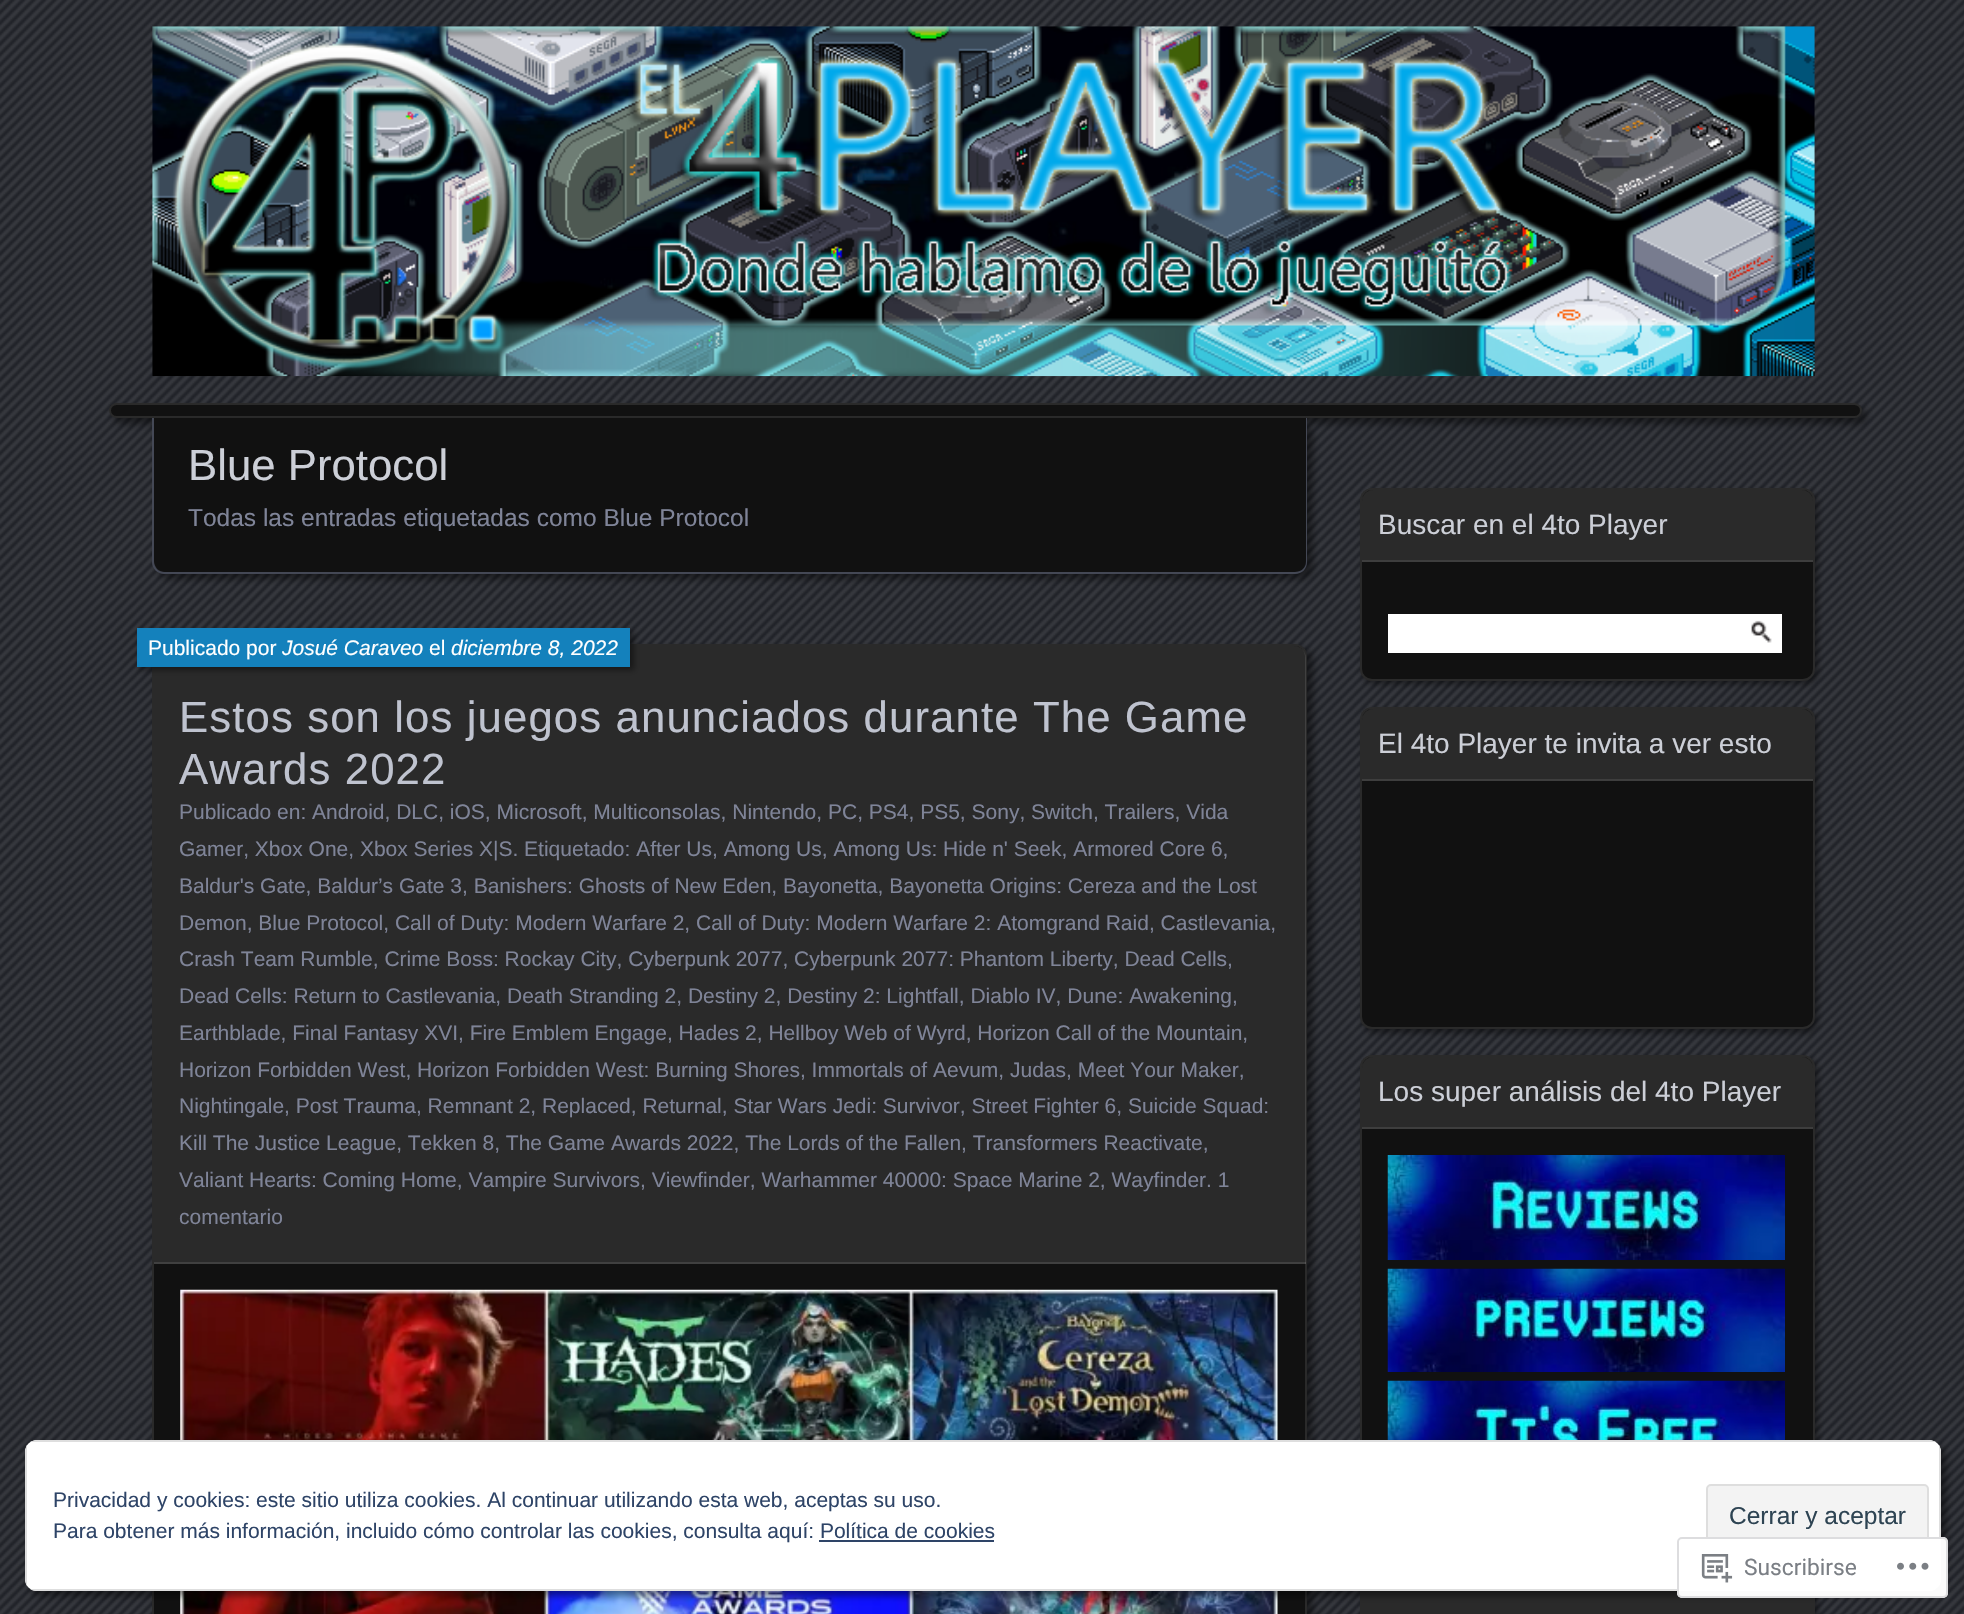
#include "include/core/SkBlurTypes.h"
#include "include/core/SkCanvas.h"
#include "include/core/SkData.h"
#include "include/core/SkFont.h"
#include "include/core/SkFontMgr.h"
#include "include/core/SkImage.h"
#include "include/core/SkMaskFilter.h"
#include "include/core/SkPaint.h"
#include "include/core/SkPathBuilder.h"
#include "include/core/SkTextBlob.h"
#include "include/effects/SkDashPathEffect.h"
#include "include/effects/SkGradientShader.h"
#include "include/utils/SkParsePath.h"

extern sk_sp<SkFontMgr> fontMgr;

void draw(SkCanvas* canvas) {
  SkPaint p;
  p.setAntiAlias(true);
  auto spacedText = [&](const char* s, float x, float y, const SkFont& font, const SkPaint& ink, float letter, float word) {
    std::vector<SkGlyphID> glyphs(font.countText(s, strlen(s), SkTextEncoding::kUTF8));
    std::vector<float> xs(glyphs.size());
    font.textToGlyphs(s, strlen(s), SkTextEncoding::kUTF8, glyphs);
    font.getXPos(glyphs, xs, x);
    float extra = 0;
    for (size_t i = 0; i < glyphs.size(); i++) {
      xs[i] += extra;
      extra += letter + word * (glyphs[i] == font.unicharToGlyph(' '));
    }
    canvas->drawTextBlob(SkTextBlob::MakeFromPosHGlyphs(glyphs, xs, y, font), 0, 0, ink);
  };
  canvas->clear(SkColorSetRGB(32, 34, 40));
  canvas->drawImageRect(SkImages::DeferredFromEncodedData(SkData::MakeFromFileName("images/1.png")), SkRect::MakeLTRB(0, 0, 1964, 1614), SkSamplingOptions());
  canvas->drawImageRect(SkImages::DeferredFromEncodedData(SkData::MakeFromFileName("images/2.png")), SkRect::MakeLTRB(152, 26, 1815, 377), SkSamplingOptions());
  p.setColor(SkColorSetARGB(115, 0, 0, 0));
  p.setMaskFilter(SkMaskFilter::MakeBlur(kNormal_SkBlurStyle, 3.5f));
  canvas->drawRoundRect(SkRect::MakeLTRB(114, 408, 1867, 424), 8, 8, p);
  p.setMaskFilter(nullptr);
  p.setColor(SkColorSetRGB(17, 17, 17));
  canvas->drawRoundRect(SkRect::MakeLTRB(109, 403, 1862, 418), 7.5f, 7.5f, p);
  p.setStyle(SkPaint::kStroke_Style);
  p.setStrokeWidth(2);
  p.setColor(SkColorSetARGB(26, 255, 255, 255));
  canvas->drawRoundRect(SkRect::MakeLTRB(110, 404, 1861, 417), 6.5f, 6.5f, p);
  p.setStyle(SkPaint::kFill_Style);
  p.setColor(SkColorSetARGB(115, 0, 0, 0));
  p.setMaskFilter(SkMaskFilter::MakeBlur(kNormal_SkBlurStyle, 3.5f));
  canvas->drawRoundRect(SkRect::MakeLTRB(158, 424, 1313, 579), 12, 12, p);
  p.setMaskFilter(nullptr);
  p.setColor(SkColorSetRGB(17, 17, 17));
  canvas->drawPath(SkPathBuilder().moveTo(154, 418).lineTo(1306, 418).lineTo(1306, 561).cubicTo(1306, 567, 1301, 572, 1295, 572).lineTo(165, 572).cubicTo(159, 572, 154, 567, 154, 561).close().detach(), p);
  p.setColor(SkColorSetRGB(68, 72, 85));
  canvas->drawPath(SkPathBuilder(SkPathFillType::kEvenOdd).moveTo(152, 418).lineTo(1307, 418).lineTo(1307, 562).cubicTo(1307, 569, 1302, 574, 1295, 574).lineTo(164, 574).cubicTo(158, 574, 152, 569, 152, 562).close().moveTo(154, 418).lineTo(1306, 418).lineTo(1306, 562).cubicTo(1306, 568, 1301, 572, 1295, 572).lineTo(164, 572).cubicTo(159, 572, 154, 568, 154, 562).close().detach(), p);
  p.setColor(SkColorSetARGB(115, 0, 0, 0));
  p.setMaskFilter(SkMaskFilter::MakeBlur(kNormal_SkBlurStyle, 3.5f));
  canvas->drawRoundRect(SkRect::MakeLTRB(158, 649, 1313, 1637), 12, 12, p);
  p.setMaskFilter(nullptr);
  p.setColor(SkColorSetRGB(17, 17, 17));
  canvas->drawRoundRect(SkRect::MakeLTRB(152, 644, 1307, 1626), 12, 12, p);
  p.setStyle(SkPaint::kStroke_Style);
  p.setColor(SkColorSetARGB(26, 255, 255, 255));
  canvas->drawRoundRect(SkRect::MakeLTRB(153, 645, 1306, 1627), 11, 11, p);
  p.setStyle(SkPaint::kFill_Style);
  canvas->drawPath(SkPathBuilder().moveTo(166, 646).lineTo(1294, 646).cubicTo(1300.5f, 646, 1306, 651.5f, 1306, 658).lineTo(1306, 1264).lineTo(154, 1264).lineTo(154, 658).cubicTo(154, 651.5f, 159.5f, 646, 166, 646).close().detach(), p);
  canvas->drawRect(SkRect::MakeLTRB(154, 1262, 1306, 1264), p);
  p.setColor(SkColorSetARGB(115, 0, 0, 0));
  p.setMaskFilter(SkMaskFilter::MakeBlur(kNormal_SkBlurStyle, 3));
  canvas->drawRect(SkRect::MakeLTRB(140, 632, 634, 670), p);
  p.setMaskFilter(nullptr);
  p.setColor(SkColorSetRGB(20, 129, 188));
  canvas->drawRect(SkRect::MakeLTRB(137, 628, 630, 667), p);
  canvas->drawImageRect(SkImages::DeferredFromEncodedData(SkData::MakeFromFileName("images/3.png")), SkRect::MakeLTRB(180, 1289, 1278, 1614), SkSamplingOptions());
  p.setColor(SkColorSetARGB(115, 0, 0, 0));
  p.setMaskFilter(SkMaskFilter::MakeBlur(kNormal_SkBlurStyle, 3));
  canvas->drawRoundRect(SkRect::MakeLTRB(1363, 492, 1818, 684), 12, 12, p);
  p.setMaskFilter(nullptr);
  p.setColor(SkColorSetRGB(17, 17, 17));
  canvas->drawRoundRect(SkRect::MakeLTRB(1360, 488, 1815, 681), 12, 12, p);
  p.setStyle(SkPaint::kStroke_Style);
  p.setColor(SkColorSetARGB(26, 255, 255, 255));
  canvas->drawRoundRect(SkRect::MakeLTRB(1361, 489, 1814, 680), 11, 11, p);
  p.setStyle(SkPaint::kFill_Style);
  canvas->drawPath(SkPathBuilder().moveTo(1373, 490).lineTo(1802, 490).cubicTo(1808, 490, 1813, 495, 1813, 501).lineTo(1813, 562).lineTo(1362, 562).lineTo(1362, 501).cubicTo(1362, 495, 1367, 490, 1373, 490).close().detach(), p);
  p.setColor(SkColorSetRGB(62, 62, 62));
  canvas->drawRect(SkRect::MakeLTRB(1362, 560, 1813, 562), p);
  p.setColor(SK_ColorWHITE);
  canvas->drawRect(SkRect::MakeLTRB(1388, 614, 1782, 653), p);
  canvas->drawImageRect(SkImages::DeferredFromEncodedData(SkData::MakeFromFileName("images/4.png")), SkRect::MakeLTRB(1751, 620, 1772, 643), SkSamplingOptions());
  p.setColor(SkColorSetARGB(115, 0, 0, 0));
  p.setMaskFilter(SkMaskFilter::MakeBlur(kNormal_SkBlurStyle, 3));
  canvas->drawRoundRect(SkRect::MakeLTRB(1363, 711, 1818, 1033), 12, 12, p);
  p.setMaskFilter(nullptr);
  p.setColor(SkColorSetRGB(17, 17, 17));
  canvas->drawRoundRect(SkRect::MakeLTRB(1360, 707, 1815, 1029), 12, 12, p);
  p.setStyle(SkPaint::kStroke_Style);
  p.setColor(SkColorSetARGB(26, 255, 255, 255));
  canvas->drawRoundRect(SkRect::MakeLTRB(1361, 708, 1814, 1028), 11, 11, p);
  p.setStyle(SkPaint::kFill_Style);
  canvas->drawPath(SkPathBuilder().moveTo(1373, 709).lineTo(1802, 709).cubicTo(1808, 709, 1813, 714, 1813, 720).lineTo(1813, 781).lineTo(1362, 781).lineTo(1362, 720).cubicTo(1362, 714, 1367, 709, 1373, 709).close().detach(), p);
  p.setColor(SkColorSetRGB(62, 62, 62));
  canvas->drawRect(SkRect::MakeLTRB(1362, 779, 1813, 781), p);
  p.setColor(SkColorSetARGB(115, 0, 0, 0));
  p.setMaskFilter(SkMaskFilter::MakeBlur(kNormal_SkBlurStyle, 3));
  canvas->drawRoundRect(SkRect::MakeLTRB(1363, 1059, 1818, 1526), 12, 12, p);
  p.setMaskFilter(nullptr);
  p.setColor(SkColorSetRGB(17, 17, 17));
  canvas->drawRoundRect(SkRect::MakeLTRB(1360, 1055, 1815, 1523), 12, 12, p);
  p.setStyle(SkPaint::kStroke_Style);
  p.setColor(SkColorSetARGB(26, 255, 255, 255));
  canvas->drawRoundRect(SkRect::MakeLTRB(1361, 1056, 1814, 1522), 11, 11, p);
  p.setStyle(SkPaint::kFill_Style);
  canvas->drawPath(SkPathBuilder().moveTo(1373, 1057).lineTo(1802, 1057).cubicTo(1808, 1057, 1813, 1062, 1813, 1068).lineTo(1813, 1129).lineTo(1362, 1129).lineTo(1362, 1068).cubicTo(1362, 1062, 1367, 1057, 1373, 1057).close().detach(), p);
  p.setColor(SkColorSetRGB(62, 62, 62));
  canvas->drawRect(SkRect::MakeLTRB(1362, 1127, 1813, 1129), p);
  canvas->drawImageRect(SkImages::DeferredFromEncodedData(SkData::MakeFromFileName("images/5.png")), SkRect::MakeLTRB(1387, 1155, 1785, 1260), SkSamplingOptions());
  canvas->drawImageRect(SkImages::DeferredFromEncodedData(SkData::MakeFromFileName("images/6.png")), SkRect::MakeLTRB(1387, 1268, 1785, 1372), SkSamplingOptions());
  canvas->drawImageRect(SkImages::DeferredFromEncodedData(SkData::MakeFromFileName("images/7.png")), SkRect::MakeLTRB(1387, 1380, 1785, 1440), SkSamplingOptions());
  p.setColor(SkColorSetARGB(115, 0, 0, 0));
  p.setMaskFilter(SkMaskFilter::MakeBlur(kNormal_SkBlurStyle, 3));
  canvas->drawRoundRect(SkRect::MakeLTRB(1363, 1552, 1818, 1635), 12, 12, p);
  p.setMaskFilter(nullptr);
  p.setColor(SkColorSetRGB(17, 17, 17));
  canvas->drawRect(SkRect::MakeLTRB(1360, 1591, 1815, 1614), p);
  p.setStyle(SkPaint::kStroke_Style);
  p.setColor(SkColorSetARGB(26, 255, 255, 255));
  canvas->drawRect(SkRect::MakeLTRB(1361, 1550, 1814, 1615), p);
  p.setStyle(SkPaint::kFill_Style);
  canvas->drawRect(SkRect::MakeLTRB(1362, 1591, 1813, 1614), p);
  p.setColor(SkColorSetARGB(115, 0, 0, 0));
  p.setMaskFilter(SkMaskFilter::MakeBlur(kNormal_SkBlurStyle, 3.5f));
  canvas->drawRoundRect(SkRect::MakeLTRB(30, 1446, 1946, 1596), 12, 12, p);
  p.setMaskFilter(nullptr);
  p.setColor(SK_ColorWHITE);
  canvas->drawRoundRect(SkRect::MakeLTRB(25, 1440, 1941, 1591), 12, 12, p);
  p.setColor(SkColorSetRGB(222, 222, 222));
  canvas->drawPath(SkPathBuilder(SkPathFillType::kEvenOdd).moveTo(25, 1452).lineTo(25, 1579).cubicTo(25, 1581, 26, 1584, 27, 1586).lineTo(27, 1445).cubicTo(26, 1447, 25, 1450, 25, 1452).close().moveTo(37, 1440).cubicTo(35, 1440, 32, 1441, 30, 1442).lineTo(1936, 1442).cubicTo(1934, 1441, 1931, 1440, 1929, 1440).close().moveTo(1941, 1452).cubicTo(1941, 1450, 1940, 1447, 1939, 1445).lineTo(1939, 1586).cubicTo(1940, 1584, 1941, 1581, 1941, 1579).close().moveTo(1929, 1591).cubicTo(1931, 1591, 1934, 1590, 1936, 1589).lineTo(30, 1589).cubicTo(32, 1590, 35, 1591, 37, 1591).close().detach(), p);
  p.setColor(SkColorSetRGB(243, 243, 243));
  canvas->drawRoundRect(SkRect::MakeLTRB(1707, 1485, 1928, 1546), 4, 4, p);
  p.setStyle(SkPaint::kStroke_Style);
  p.setColor(SkColorSetRGB(222, 222, 222));
  canvas->drawRoundRect(SkRect::MakeLTRB(1707, 1485, 1928, 1546), 4, 4, p);
  p.setStyle(SkPaint::kFill_Style);
  p.setColor(SkColorSetRGB(46, 68, 103));
  canvas->drawRect(SkRect::MakeLTRB(819, 1540, 994, 1542), p);
  p.setColor(SkColorSetARGB(250, 255, 255, 255));
  canvas->drawRoundRect(SkRect::MakeLTRB(1677, 1537, 1948, 1598), 5, 5, p);
  p.setStyle(SkPaint::kStroke_Style);
  p.setColor(SkColorSetARGB(250, 220, 220, 222));
  canvas->drawRoundRect(SkRect::MakeLTRB(1678, 1538, 1947, 1597), 4, 4, p);
  canvas->drawImageRect(SkImages::DeferredFromEncodedData(SkData::MakeFromFileName("images/8.png")), SkRect::MakeLTRB(1701, 1554, 1733, 1583), SkSamplingOptions());
  canvas->drawImageRect(SkImages::DeferredFromEncodedData(SkData::MakeFromFileName("images/9.png")), SkRect::MakeLTRB(1897, 1562, 1929, 1570), SkSamplingOptions());
  SkFont font1(fontMgr->matchFamilyStyle("Liberation Sans", SkFontStyle::Normal()), 43.75f);
  font1.setSubpixel(true);
  p.setStyle(SkPaint::kFill_Style);
  p.setColor(SkColorSetRGB(204, 207, 215));
  canvas->drawString("Blue Protocol", 188, 480, font1, p);
  SkFont font2(fontMgr->matchFamilyStyle("Liberation Sans", SkFontStyle::Normal()), 24.5f);
  font2.setSubpixel(true);
  p.setColor(SkColorSetRGB(127, 132, 152));
  canvas->drawString("Todas las entradas etiquetadas como Blue Protocol", 188, 526, font2, p);
  SkFont font3(fontMgr->matchFamilyStyle("Liberation Sans", SkFontStyle::Normal()), 21);
  font3.setSubpixel(true);
  p.setColor(SK_ColorWHITE);
  canvas->drawString("Publicado por", 148, 655, font3, p);
  SkFont font4(fontMgr->matchFamilyStyle("Liberation Sans", SkFontStyle::Italic()), 21);
  font4.setSubpixel(true);
  canvas->drawString("Josué Caraveo", 282, 655, font4, p);
  canvas->drawString("el", 429, 655, font3, p);
  canvas->drawString("diciembre 8, 2022", 451, 655, font4, p);
  p.setColor(SkColorSetRGB(191, 195, 207));
  spacedText("Estos son los juegos anunciados durante The Game", 179, 732, font1, p, 1.1f, 0);
  spacedText("Awards 2022", 179, 784, font1, p, 1.1f, 0);
  p.setColor(SkColorSetRGB(127, 132, 152));
  canvas->drawString("Publicado en: Android, DLC, iOS, Microsoft, Multiconsolas, Nintendo, PC, PS4, PS5, Sony, Switch, Trailers, Vida", 179, 819, font3, p);
  canvas->drawString("Gamer, Xbox One, Xbox Series X|S. Etiquetado: After Us, Among Us, Among Us: Hide n' Seek, Armored Core 6,", 179, 856, font3, p);
  canvas->drawString("Baldur's Gate, Baldur’s Gate 3, Banishers: Ghosts of New Eden, Bayonetta, Bayonetta Origins: Cereza and the Lost", 179, 893, font3, p);
  canvas->drawString("Demon, Blue Protocol, Call of Duty: Modern Warfare 2, Call of Duty: Modern Warfare 2: Atomgrand Raid, Castlevania,", 179, 930, font3, p);
  canvas->drawString("Crash Team Rumble, Crime Boss: Rockay City, Cyberpunk 2077, Cyberpunk 2077: Phantom Liberty, Dead Cells,", 179, 966, font3, p);
  canvas->drawString("Dead Cells: Return to Castlevania, Death Stranding 2, Destiny 2, Destiny 2: Lightfall, Diablo IV, Dune: Awakening,", 179, 1003, font3, p);
  canvas->drawString("Earthblade, Final Fantasy XVI, Fire Emblem Engage, Hades 2, Hellboy Web of Wyrd, Horizon Call of the Mountain,", 179, 1040, font3, p);
  canvas->drawString("Horizon Forbidden West, Horizon Forbidden West: Burning Shores, Immortals of Aevum, Judas, Meet Your Maker,", 179, 1077, font3, p);
  canvas->drawString("Nightingale, Post Trauma, Remnant 2, Replaced, Returnal, Star Wars Jedi: Survivor, Street Fighter 6, Suicide Squad:", 179, 1113, font3, p);
  canvas->drawString("Kill The Justice League, Tekken 8, The Game Awards 2022, The Lords of the Fallen, Transformers Reactivate,", 179, 1150, font3, p);
  canvas->drawString("Valiant Hearts: Coming Home, Vampire Survivors, Viewfinder, Warhammer 40000: Space Marine 2, Wayfinder. 1", 179, 1187, font3, p);
  canvas->drawString("comentario", 179, 1224, font3, p);
  SkFont font5(fontMgr->matchFamilyStyle("Liberation Sans", SkFontStyle::Normal()), 28);
  font5.setSubpixel(true);
  p.setColor(SkColorSetRGB(204, 207, 215));
  canvas->drawString("Buscar en el 4to Player", 1378, 534, font5, p);
  canvas->drawString("El 4to Player te invita a ver esto", 1378, 753, font5, p);
  canvas->drawString("Los super análisis del 4to Player", 1378, 1101, font5, p);
  p.setColor(SkColorSetRGB(46, 68, 103));
  canvas->drawString("Privacidad y cookies: este sitio utiliza cookies. Al continuar utilizando esta web, aceptas su uso.", 53, 1507, font3, p);
  p.setColor(SkColorSetRGB(46, 68, 83));
  canvas->drawString("Cerrar y aceptar", 1729, 1524, font2, p);
  p.setColor(SkColorSetRGB(46, 68, 103));
  canvas->drawString("Para obtener más información, incluido cómo controlar las cookies, consulta aquí: Política de cookies", 53, 1538, font3, p);
  SkFont font6(fontMgr->matchFamilyStyle("Roboto", SkFontStyle::Normal()), 22.75f);
  font6.setSubpixel(true);
  p.setColor(SkColorSetRGB(123, 127, 133));
  canvas->drawString("Suscribirse", 1744, 1575, font6, p);
}
